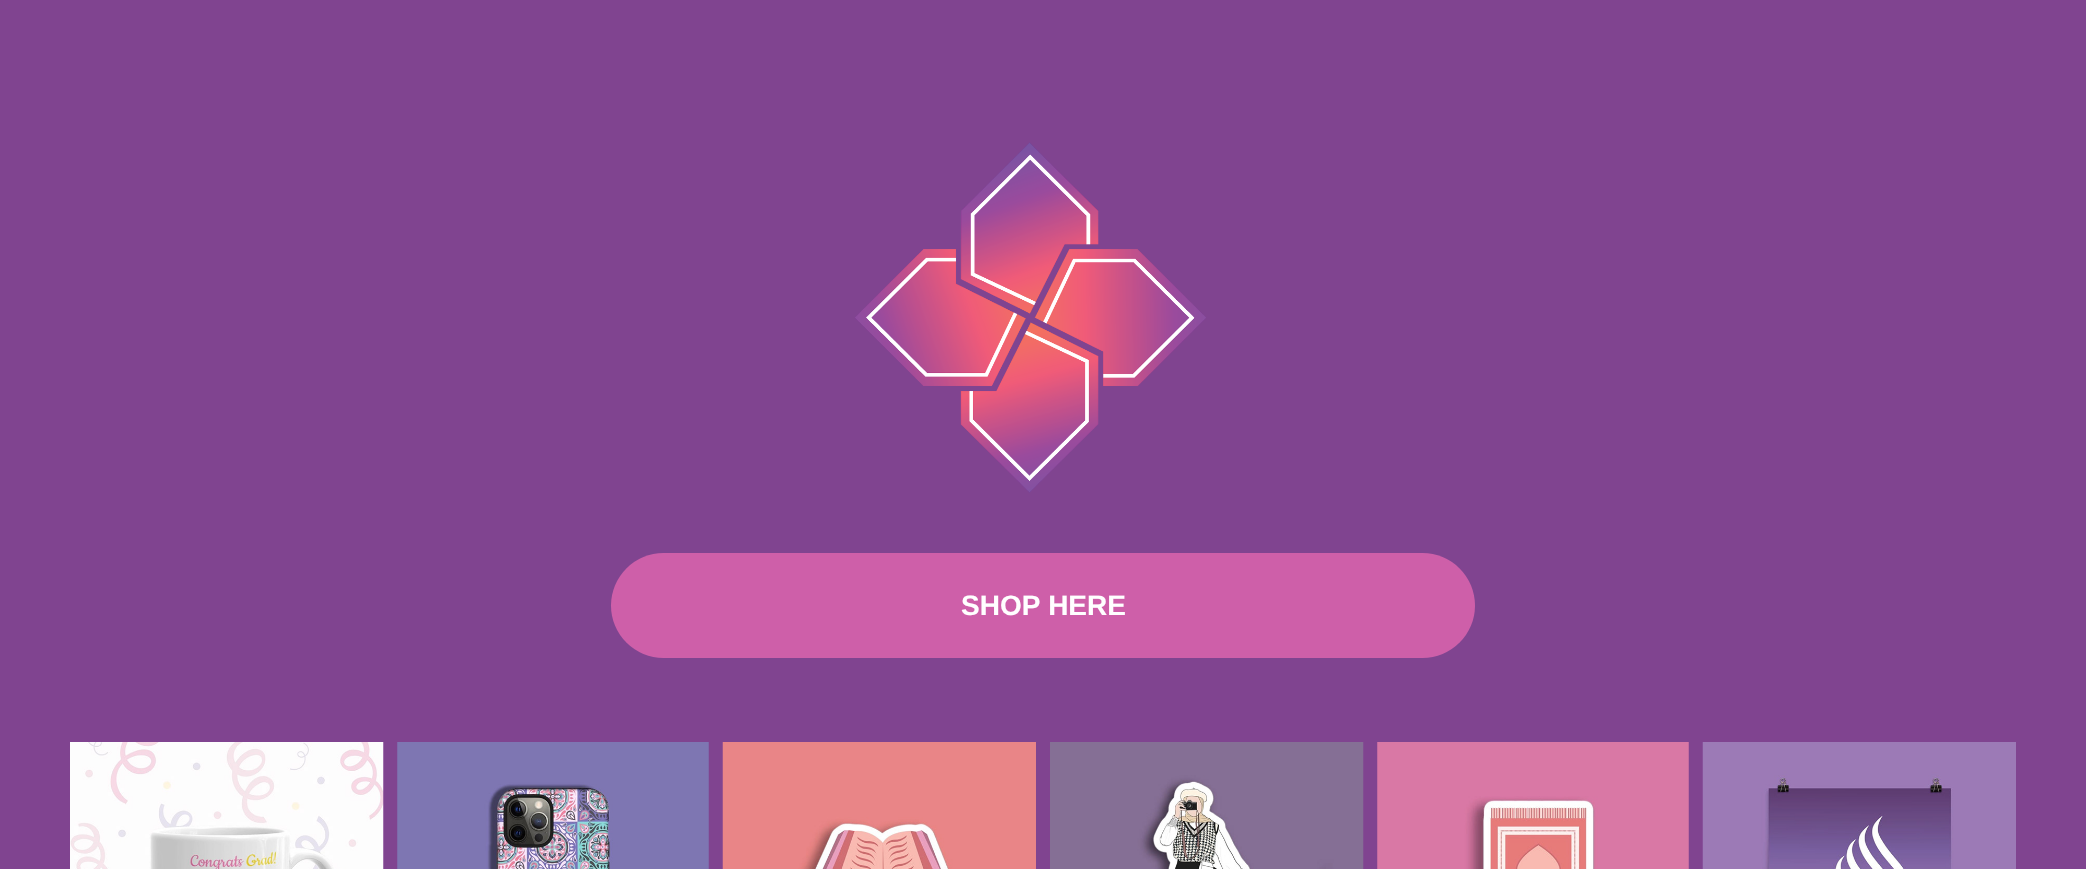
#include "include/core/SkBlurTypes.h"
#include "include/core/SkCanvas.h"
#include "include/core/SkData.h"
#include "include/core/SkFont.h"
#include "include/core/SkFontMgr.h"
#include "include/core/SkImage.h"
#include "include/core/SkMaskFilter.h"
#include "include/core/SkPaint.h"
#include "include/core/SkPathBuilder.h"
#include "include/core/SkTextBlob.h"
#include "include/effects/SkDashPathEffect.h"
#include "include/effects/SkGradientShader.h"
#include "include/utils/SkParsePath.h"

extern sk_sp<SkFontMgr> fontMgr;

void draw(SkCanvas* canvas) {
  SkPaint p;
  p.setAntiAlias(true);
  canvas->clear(SkColorSetRGB(128, 68, 144));
  canvas->drawImageRect(SkImages::DeferredFromEncodedData(SkData::MakeFromFileName("images/1.png")), SkRect::MakeLTRB(855, 142, 1206, 493), SkSamplingOptions());
  p.setColor(SkColorSetRGB(206, 95, 169));
  canvas->drawRoundRect(SkRect::MakeLTRB(611, 553, 1475, 658), 52.5f, 52.5f, p);
  canvas->drawImageRect(SkImages::DeferredFromEncodedData(SkData::MakeFromFileName("images/2.png")), SkRect::MakeLTRB(70, 742, 384, 869), SkSamplingOptions());
  canvas->drawImageRect(SkImages::DeferredFromEncodedData(SkData::MakeFromFileName("images/3.png")), SkRect::MakeLTRB(397, 742, 709, 869), SkSamplingOptions());
  canvas->drawImageRect(SkImages::DeferredFromEncodedData(SkData::MakeFromFileName("images/4.png")), SkRect::MakeLTRB(722, 742, 1036, 869), SkSamplingOptions());
  canvas->drawImageRect(SkImages::DeferredFromEncodedData(SkData::MakeFromFileName("images/5.png")), SkRect::MakeLTRB(1050, 742, 1364, 869), SkSamplingOptions());
  canvas->drawImageRect(SkImages::DeferredFromEncodedData(SkData::MakeFromFileName("images/6.png")), SkRect::MakeLTRB(1377, 742, 1689, 869), SkSamplingOptions());
  canvas->drawImageRect(SkImages::DeferredFromEncodedData(SkData::MakeFromFileName("images/7.png")), SkRect::MakeLTRB(1702, 742, 2016, 869), SkSamplingOptions());
  SkFont font1(fontMgr->matchFamilyStyle("Liberation Sans", SkFontStyle::Bold()), 28);
  font1.setSubpixel(true);
  p.setColor(SK_ColorWHITE);
  canvas->drawString("SHOP HERE", 961, 615, font1, p);
}
